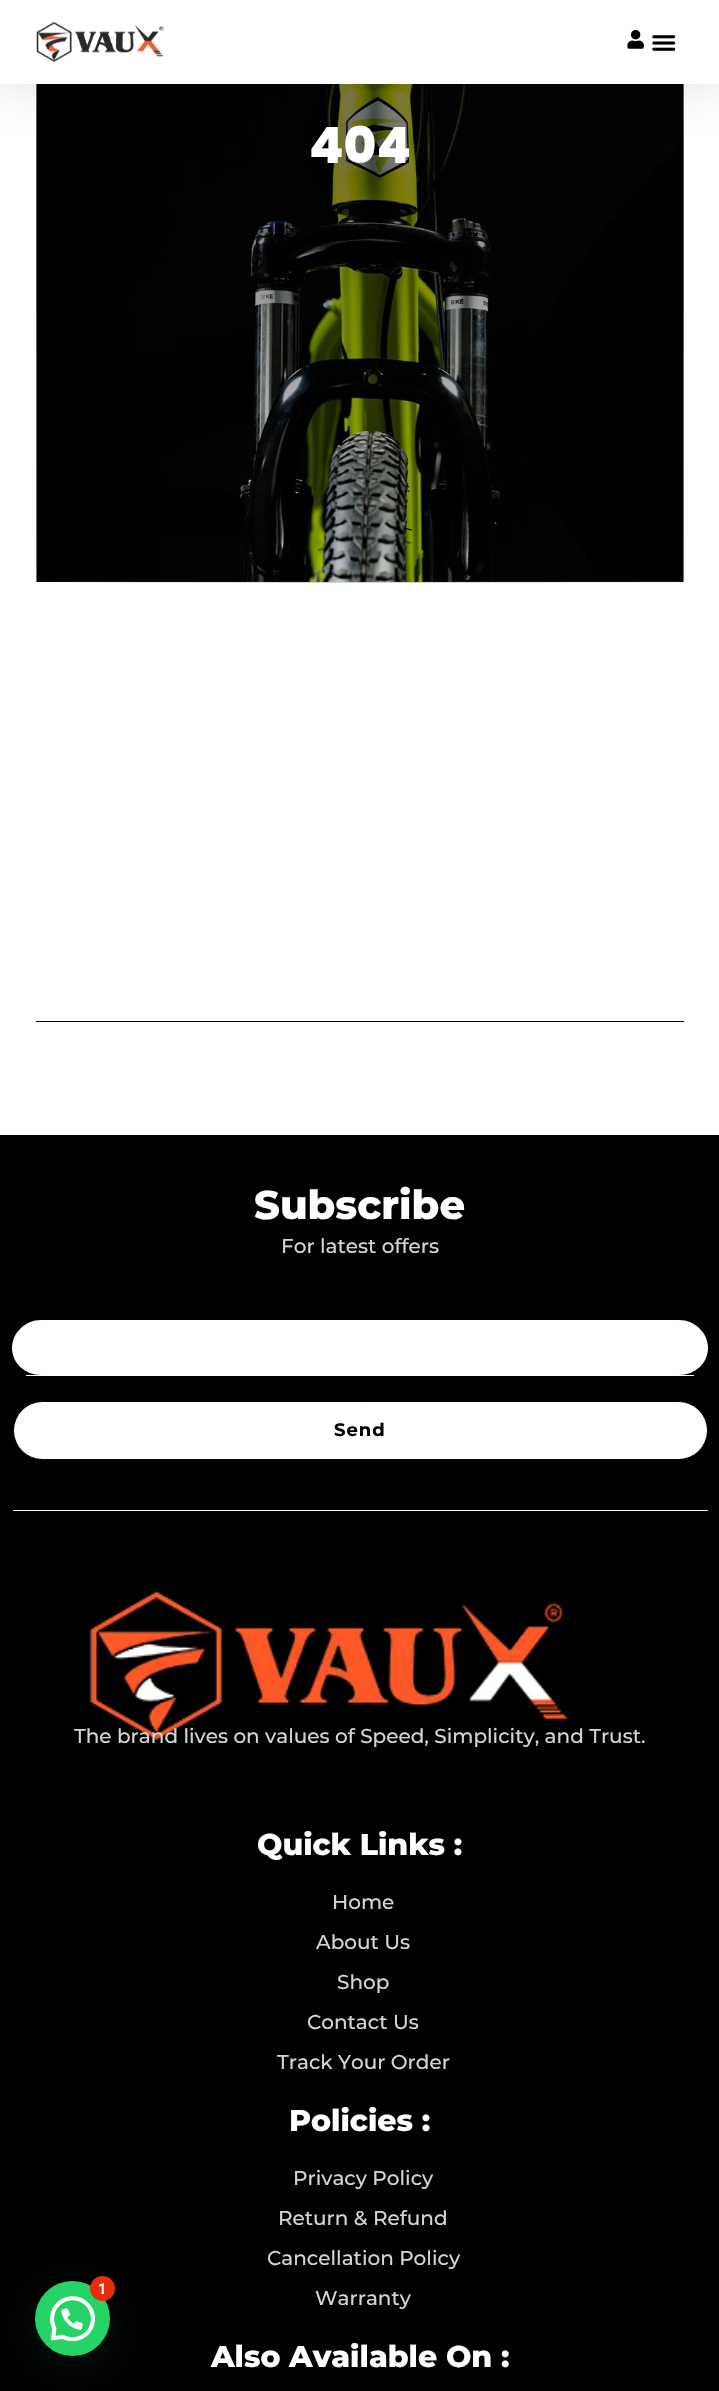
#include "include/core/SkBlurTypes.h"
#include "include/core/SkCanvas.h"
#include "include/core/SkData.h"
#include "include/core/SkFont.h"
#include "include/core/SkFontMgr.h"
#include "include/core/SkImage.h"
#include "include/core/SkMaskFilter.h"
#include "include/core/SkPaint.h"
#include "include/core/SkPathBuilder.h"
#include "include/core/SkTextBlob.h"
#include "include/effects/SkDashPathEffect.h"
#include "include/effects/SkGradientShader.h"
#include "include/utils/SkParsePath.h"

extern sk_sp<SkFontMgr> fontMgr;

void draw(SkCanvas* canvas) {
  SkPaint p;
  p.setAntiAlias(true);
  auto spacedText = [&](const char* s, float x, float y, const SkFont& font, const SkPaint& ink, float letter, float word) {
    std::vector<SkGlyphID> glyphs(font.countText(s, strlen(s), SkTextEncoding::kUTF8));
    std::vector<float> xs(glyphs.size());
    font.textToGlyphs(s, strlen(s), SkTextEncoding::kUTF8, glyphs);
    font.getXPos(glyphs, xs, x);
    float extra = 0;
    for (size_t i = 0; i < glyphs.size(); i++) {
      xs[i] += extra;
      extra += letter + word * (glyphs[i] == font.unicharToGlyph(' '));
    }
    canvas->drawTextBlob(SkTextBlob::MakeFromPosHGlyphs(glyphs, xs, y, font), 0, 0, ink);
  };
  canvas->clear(SK_ColorWHITE);
  canvas->drawImageRect(SkImages::DeferredFromEncodedData(SkData::MakeFromFileName("images/4.png")), SkRect::MakeLTRB(36, 84, 684, 583), SkSamplingOptions());
  {
    const SkColor colors[] = {SkColorSetARGB(145, 0, 0, 0), SkColorSetARGB(0, 0, 0, 0)};
    const float stops[] = {0, 1};
    SkMatrix m = SkMatrix::Translate(360, 145).preScale(458, 619);
    p.setShader(SkGradientShader::MakeRadial({0, 0}, 1, colors, stops, 2, SkTileMode::kClamp, 0, &m));
    p.setAlpha(255);
  }
  canvas->drawRect(SkRect::MakeLTRB(36, 84, 684, 583), p);
  p.setShader(nullptr);
  p.setColor(SkColorSetARGB(26, 0, 0, 0));
  p.setMaskFilter(SkMaskFilter::MakeBlur(kNormal_SkBlurStyle, 19));
  canvas->drawRect(SkRect::MakeLTRB(0, 5, 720, 89), p);
  p.setMaskFilter(nullptr);
  p.setColor(SK_ColorWHITE);
  canvas->drawRect(SkRect::MakeLTRB(0, 0, 719, 84), p);
  canvas->drawImageRect(SkImages::DeferredFromEncodedData(SkData::MakeFromFileName("images/1.png")), SkRect::MakeLTRB(36, 21, 164, 62), SkSamplingOptions());
  canvas->drawImageRect(SkImages::DeferredFromEncodedData(SkData::MakeFromFileName("images/2.png")), SkRect::MakeLTRB(627, 30, 644, 49), SkSamplingOptions());
  canvas->drawImageRect(SkImages::DeferredFromEncodedData(SkData::MakeFromFileName("images/3.png")), SkRect::MakeLTRB(652, 35, 676, 51), SkSamplingOptions());
  p.setColor(SK_ColorBLACK);
  canvas->drawRect(SkRect::MakeLTRB(36, 1021, 684, 1022), p);
  canvas->drawRect(SkRect::MakeLTRB(0, 1135, 719, 2391), p);
  p.setColor(SK_ColorWHITE);
  canvas->drawPath(SkPathBuilder().moveTo(41, 1320).lineTo(679, 1320).cubicTo(695, 1320, 708, 1333, 708, 1348).cubicTo(708, 1363, 695, 1375, 679, 1375).lineTo(41, 1375).cubicTo(25, 1375, 12, 1363, 12, 1348).cubicTo(12, 1333, 25, 1320, 41, 1320).close().detach(), p);
  canvas->drawRect(SkRect::MakeLTRB(26, 1375, 694, 1376), p);
  canvas->drawRoundRect(SkRect::MakeLTRB(13.5f, 1401.5f, 707.5f, 1459.5f), 29, 29, p);
  p.setStyle(SkPaint::kStroke_Style);
  p.setStrokeWidth(1);
  p.setColor(SK_ColorBLACK);
  canvas->drawRoundRect(SkRect::MakeLTRB(13.5f, 1401.5f, 707.5f, 1459.5f), 29, 29, p);
  p.setStyle(SkPaint::kFill_Style);
  p.setColor(SK_ColorWHITE);
  canvas->drawRect(SkRect::MakeLTRB(13, 1510, 708, 1511), p);
  canvas->drawImageRect(SkImages::DeferredFromEncodedData(SkData::MakeFromFileName("images/5.png")), SkRect::MakeLTRB(89, 1590, 568, 1741), SkSamplingOptions());
  p.setColor(SkColorSetARGB(61, 7, 94, 84));
  p.setMaskFilter(SkMaskFilter::MakeBlur(kNormal_SkBlurStyle, 15));
  canvas->drawRoundRect(SkRect::MakeLTRB(36, 2289, 111, 2364), 37.5f, 37.5f, p);
  p.setMaskFilter(nullptr);
  p.setColor(SkColorSetRGB(37, 211, 102));
  canvas->drawCircle(72.5f, 2318.5f, 37.5f, p);
  canvas->drawImageRect(SkImages::DeferredFromEncodedData(SkData::MakeFromFileName("images/6.png")), SkRect::MakeLTRB(50, 2296, 95, 2341), SkSamplingOptions());
  p.setColor(SkColorSetRGB(232, 44, 12));
  canvas->drawCircle(102.5f, 2288.5f, 12.5f, p);
  SkFont font1(fontMgr->matchFamilyStyle("Poppins", SkFontStyle(800, SkFontStyle::kNormal_Width, SkFontStyle::kUpright_Slant)), 50);
  font1.setSubpixel(true);
  p.setColor(SK_ColorWHITE);
  canvas->drawString("404", 309, 163, font1, p);
  SkFont font2(fontMgr->matchFamilyStyle("Montserrat", SkFontStyle(800, SkFontStyle::kNormal_Width, SkFontStyle::kUpright_Slant)), 40);
  font2.setSubpixel(true);
  canvas->drawString("Subscribe", 254, 1219, font2, p);
  SkFont font3(fontMgr->matchFamilyStyle("Montserrat", SkFontStyle(500, SkFontStyle::kNormal_Width, SkFontStyle::kUpright_Slant)), 20);
  font3.setSubpixel(true);
  p.setColor(SkColorSetRGB(212, 212, 212));
  canvas->drawString("For latest offers", 281, 1253, font3, p);
  SkFont font4(fontMgr->matchFamilyStyle("Montserrat", SkFontStyle::Bold()), 18);
  font4.setSubpixel(true);
  p.setColor(SK_ColorBLACK);
  spacedText("Send", 334, 1436, font4, p, 1, 0);
  p.setColor(SkColorSetRGB(212, 212, 212));
  canvas->drawString("The brand lives on values of Speed, Simplicity, and Trust.", 74, 1743, font3, p);
  SkFont font5(fontMgr->matchFamilyStyle("Montserrat", SkFontStyle(800, SkFontStyle::kNormal_Width, SkFontStyle::kUpright_Slant)), 30);
  font5.setSubpixel(true);
  p.setColor(SK_ColorWHITE);
  canvas->drawString("Quick Links :", 257, 1855, font5, p);
  p.setColor(SkColorSetRGB(212, 212, 212));
  canvas->drawString("Home", 332, 1909, font3, p);
  canvas->drawString("About Us", 316, 1949, font3, p);
  canvas->drawString("Shop", 337, 1989, font3, p);
  canvas->drawString("Contact Us", 307, 2029, font3, p);
  canvas->drawString("Track Your Order", 277, 2069, font3, p);
  p.setColor(SK_ColorWHITE);
  canvas->drawString("Policies :", 289, 2131, font5, p);
  p.setColor(SkColorSetRGB(212, 212, 212));
  canvas->drawString("Privacy Policy", 293, 2185, font3, p);
  canvas->drawString("Return & Refund", 278, 2225, font3, p);
  canvas->drawString("Cancellation Policy", 267, 2265, font3, p);
  canvas->drawString("Warranty", 315, 2305, font3, p);
  p.setColor(SK_ColorWHITE);
  canvas->drawString("Also Available On :", 211, 2367, font5, p);
  SkFont font6(fontMgr->matchFamilyStyle("Roboto", SkFontStyle(600, SkFontStyle::kNormal_Width, SkFontStyle::kUpright_Slant)), 15);
  font6.setSubpixel(true);
  canvas->drawString("1", 98, 2294, font6, p);
}
